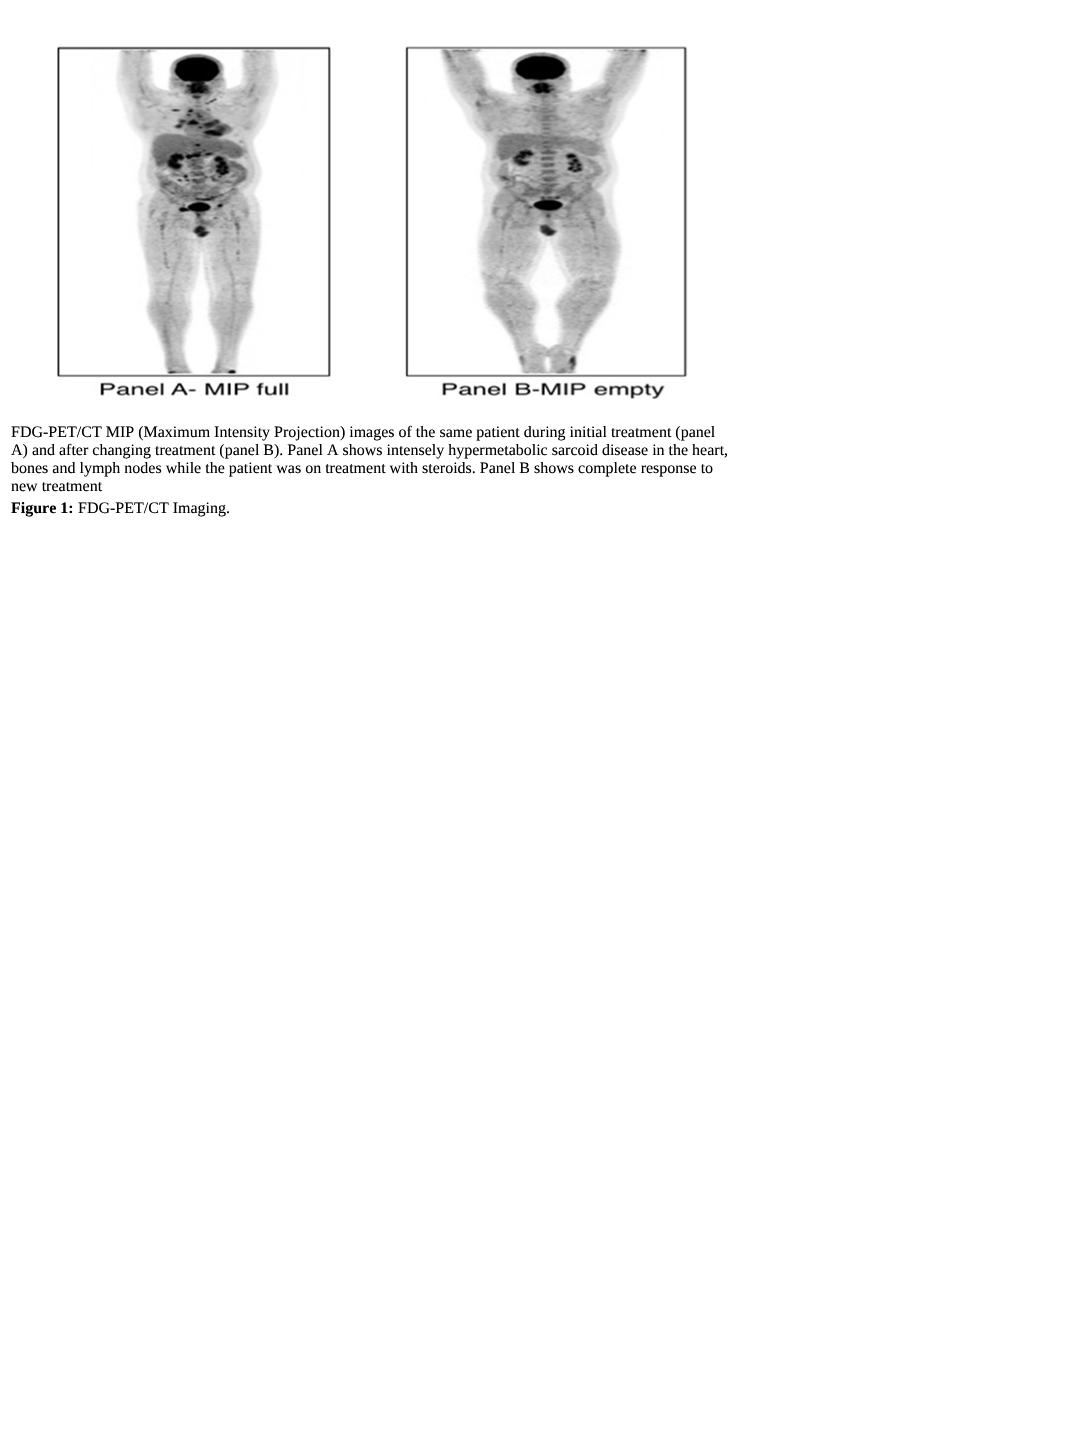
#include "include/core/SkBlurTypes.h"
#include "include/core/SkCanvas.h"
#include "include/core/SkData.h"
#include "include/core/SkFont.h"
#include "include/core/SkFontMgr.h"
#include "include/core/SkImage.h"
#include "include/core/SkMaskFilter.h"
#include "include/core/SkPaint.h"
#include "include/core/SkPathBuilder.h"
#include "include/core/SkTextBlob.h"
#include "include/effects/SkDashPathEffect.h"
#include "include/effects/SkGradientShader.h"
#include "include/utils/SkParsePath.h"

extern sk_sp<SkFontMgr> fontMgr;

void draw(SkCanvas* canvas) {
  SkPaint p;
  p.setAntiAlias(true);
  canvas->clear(SK_ColorWHITE);
  canvas->drawImageRect(SkImages::DeferredFromEncodedData(SkData::MakeFromFileName("images/1.png")), SkRect::MakeLTRB(57, 46, 688, 400), SkSamplingOptions());
  SkFont font1(fontMgr->matchFamilyStyle("Liberation Serif", SkFontStyle::Normal()), 16);
  font1.setSubpixel(true);
  p.setColor(SK_ColorBLACK);
  canvas->drawString("FDG-PET/CT MIP (Maximum Intensity Projection) images of the same patient during initial treatment (panel", 11, 437, font1, p);
  canvas->drawString("A) and after changing treatment (panel B). Panel A shows intensely hypermetabolic sarcoid disease in the heart,", 11, 455, font1, p);
  canvas->drawString("bones and lymph nodes while the patient was on treatment with steroids. Panel B shows complete response to", 11, 473, font1, p);
  canvas->drawString("new treatment", 11, 491, font1, p);
  SkFont font2(fontMgr->matchFamilyStyle("Liberation Serif", SkFontStyle::Bold()), 16);
  font2.setSubpixel(true);
  canvas->drawString("Figure 1:", 11, 513, font2, p);
  canvas->drawString("FDG-PET/CT Imaging.", 78, 513, font1, p);
}
